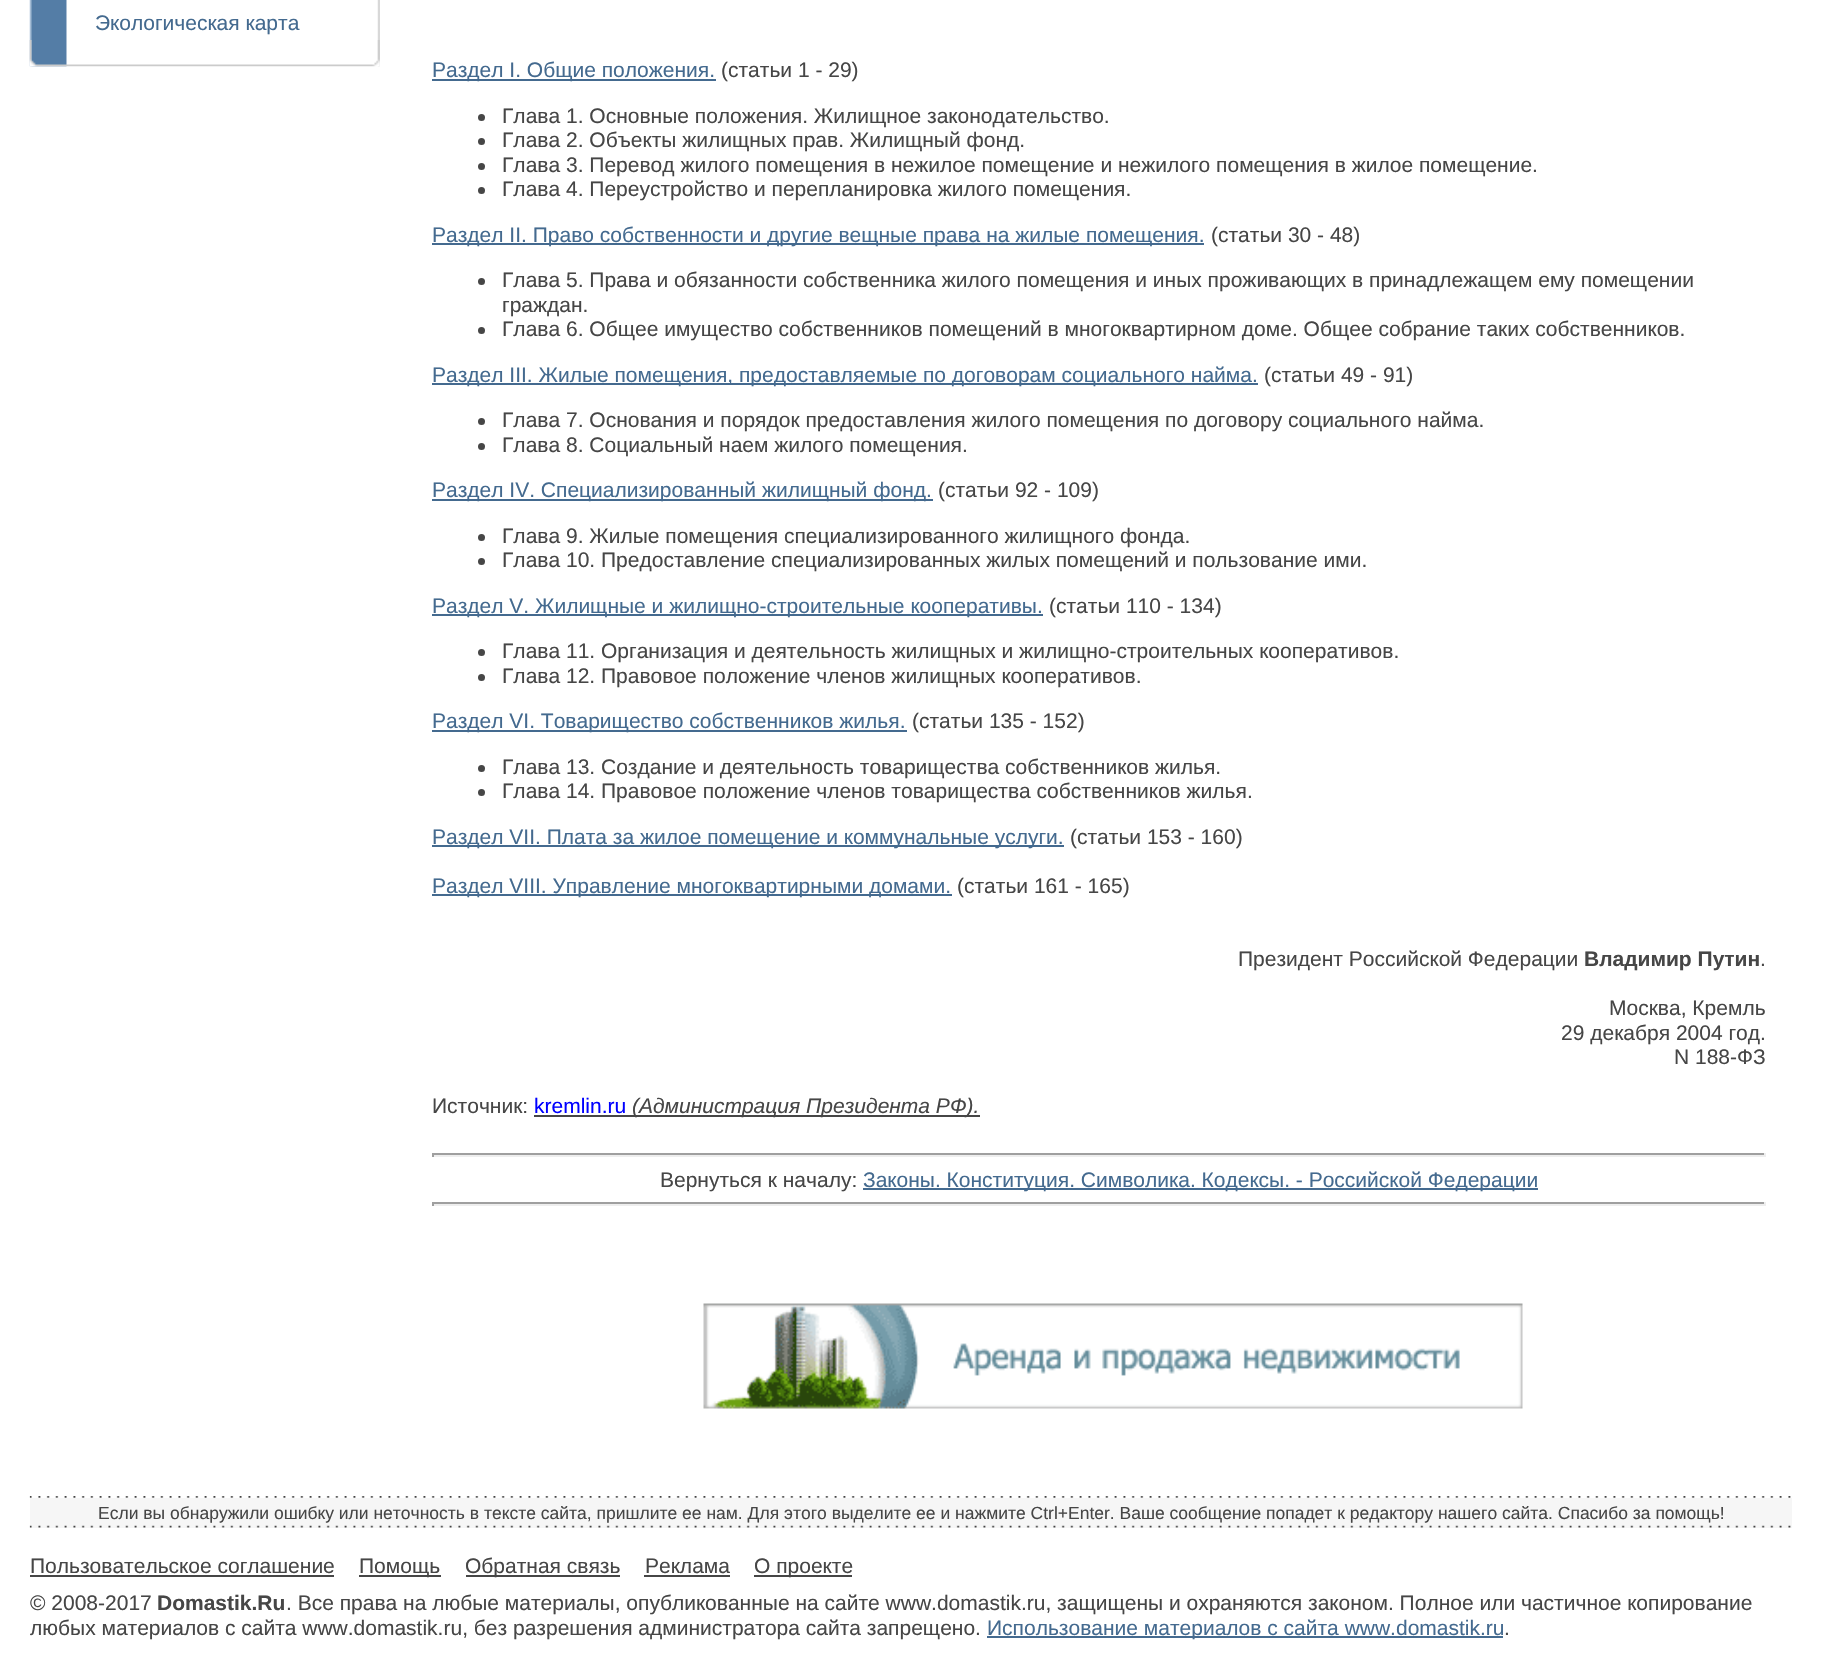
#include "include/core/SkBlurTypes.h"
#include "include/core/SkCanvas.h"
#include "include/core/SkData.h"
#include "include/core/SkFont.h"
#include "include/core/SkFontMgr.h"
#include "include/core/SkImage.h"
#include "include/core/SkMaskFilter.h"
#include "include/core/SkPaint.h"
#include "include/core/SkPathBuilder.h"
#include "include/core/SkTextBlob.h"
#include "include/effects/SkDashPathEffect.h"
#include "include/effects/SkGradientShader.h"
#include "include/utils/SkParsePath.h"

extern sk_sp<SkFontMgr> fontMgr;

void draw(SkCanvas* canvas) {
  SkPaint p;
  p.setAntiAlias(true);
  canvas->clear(SK_ColorWHITE);
  canvas->drawImageRect(SkImages::DeferredFromEncodedData(SkData::MakeFromFileName("images/1.png")), SkRect::MakeLTRB(29, 0, 380, 67), SkSamplingOptions());
  canvas->drawImageRect(SkImages::DeferredFromEncodedData(SkData::MakeFromFileName("images/2.png")), SkRect::MakeLTRB(29, 40, 380, 67), SkSamplingOptions());
  p.setColor(SkColorSetRGB(68, 106, 143));
  canvas->drawRect(SkRect::MakeLTRB(432, 79, 716, 81), p);
  p.setColor(SkColorSetRGB(70, 70, 70));
  canvas->drawCircle(481.5f, 117.5f, 3.5f, p);
  canvas->drawCircle(481.5f, 141.5f, 3.5f, p);
  canvas->drawCircle(481.5f, 166.5f, 3.5f, p);
  canvas->drawCircle(481.5f, 190.5f, 3.5f, p);
  p.setColor(SkColorSetRGB(68, 106, 143));
  canvas->drawRect(SkRect::MakeLTRB(432, 243, 1204, 245), p);
  p.setColor(SkColorSetRGB(70, 70, 70));
  canvas->drawCircle(481.5f, 281.5f, 3.5f, p);
  canvas->drawCircle(481.5f, 330.5f, 3.5f, p);
  p.setColor(SkColorSetRGB(68, 106, 143));
  canvas->drawRect(SkRect::MakeLTRB(432, 383, 1258, 385), p);
  p.setColor(SkColorSetRGB(70, 70, 70));
  canvas->drawCircle(481.5f, 421.5f, 3.5f, p);
  canvas->drawCircle(481.5f, 446.5f, 3.5f, p);
  p.setColor(SkColorSetRGB(68, 106, 143));
  canvas->drawRect(SkRect::MakeLTRB(432, 499, 933, 501), p);
  p.setColor(SkColorSetRGB(70, 70, 70));
  canvas->drawCircle(481.5f, 537.5f, 3.5f, p);
  canvas->drawCircle(481.5f, 561.5f, 3.5f, p);
  p.setColor(SkColorSetRGB(68, 106, 143));
  canvas->drawRect(SkRect::MakeLTRB(432, 614, 1043, 616), p);
  p.setColor(SkColorSetRGB(70, 70, 70));
  canvas->drawCircle(481.5f, 652.5f, 3.5f, p);
  canvas->drawCircle(481.5f, 677.5f, 3.5f, p);
  p.setColor(SkColorSetRGB(68, 106, 143));
  canvas->drawRect(SkRect::MakeLTRB(432, 730, 907, 732), p);
  p.setColor(SkColorSetRGB(70, 70, 70));
  canvas->drawCircle(481.5f, 768.5f, 3.5f, p);
  canvas->drawCircle(481.5f, 792.5f, 3.5f, p);
  p.setColor(SkColorSetRGB(68, 106, 143));
  canvas->drawRect(SkRect::MakeLTRB(432, 845, 1064, 847), p);
  canvas->drawRect(SkRect::MakeLTRB(432, 894, 952, 896), p);
  p.setColor(SkColorSetRGB(70, 70, 70));
  canvas->drawRect(SkRect::MakeLTRB(534, 1115, 980, 1117), p);
  p.setColor(SkColorSetRGB(159, 159, 159));
  canvas->drawRect(SkRect::MakeLTRB(432, 1153, 1766, 1155), p);
  p.setColor(SkColorSetRGB(238, 238, 238));
  canvas->drawRect(SkRect::MakeLTRB(1764, 1153, 1766, 1157), p);
  canvas->drawRect(SkRect::MakeLTRB(432, 1155, 1766, 1157), p);
  p.setColor(SkColorSetRGB(159, 159, 159));
  canvas->drawRect(SkRect::MakeLTRB(432, 1153, 434, 1157), p);
  p.setColor(SkColorSetRGB(68, 106, 143));
  canvas->drawRect(SkRect::MakeLTRB(863, 1188, 1538, 1190), p);
  p.setColor(SkColorSetRGB(159, 159, 159));
  canvas->drawRect(SkRect::MakeLTRB(432, 1202, 1766, 1204), p);
  p.setColor(SkColorSetRGB(238, 238, 238));
  canvas->drawRect(SkRect::MakeLTRB(1764, 1202, 1766, 1206), p);
  canvas->drawRect(SkRect::MakeLTRB(432, 1204, 1766, 1206), p);
  p.setColor(SkColorSetRGB(159, 159, 159));
  canvas->drawRect(SkRect::MakeLTRB(432, 1202, 434, 1206), p);
  canvas->drawImageRect(SkImages::DeferredFromEncodedData(SkData::MakeFromFileName("images/3.png")), SkRect::MakeLTRB(703, 1303, 1523, 1409), SkSamplingOptions());
  canvas->drawImageRect(SkImages::DeferredFromEncodedData(SkData::MakeFromFileName("images/4.png")), SkRect::MakeLTRB(29, 1496, 1791, 1498), SkSamplingOptions());
  p.setColor(SkColorSetRGB(246, 246, 246));
  canvas->drawRect(SkRect::MakeLTRB(30, 1498, 1792, 1528), p);
  canvas->drawImageRect(SkImages::DeferredFromEncodedData(SkData::MakeFromFileName("images/5.png")), SkRect::MakeLTRB(29, 1525, 1791, 1528), SkSamplingOptions());
  p.setColor(SkColorSetRGB(70, 70, 70));
  canvas->drawRect(SkRect::MakeLTRB(30, 1575, 334, 1577), p);
  canvas->drawRect(SkRect::MakeLTRB(359, 1575, 441, 1577), p);
  canvas->drawRect(SkRect::MakeLTRB(466, 1575, 620, 1577), p);
  canvas->drawRect(SkRect::MakeLTRB(644, 1575, 730, 1577), p);
  canvas->drawRect(SkRect::MakeLTRB(754, 1575, 852, 1577), p);
  p.setColor(SkColorSetRGB(68, 106, 143));
  canvas->drawRect(SkRect::MakeLTRB(987, 1636, 1503, 1638), p);
  SkFont font1(fontMgr->matchFamilyStyle("Liberation Sans", SkFontStyle::Normal()), 21);
  font1.setSubpixel(true);
  canvas->drawString("Экологическая карта", 95, 30, font1, p);
  canvas->drawString("Раздел I. Общие положения.", 432, 77, font1, p);
  p.setColor(SkColorSetRGB(70, 70, 70));
  canvas->drawString("(статьи 1 - 29)", 721, 77, font1, p);
  canvas->drawString("Глава 1. Основные положения. Жилищное законодательство.", 502, 123, font1, p);
  canvas->drawString("Глава 2. Объекты жилищных прав. Жилищный фонд.", 502, 147, font1, p);
  canvas->drawString("Глава 3. Перевод жилого помещения в нежилое помещение и нежилого помещения в жилое помещение.", 502, 172, font1, p);
  canvas->drawString("Глава 4. Переустройство и перепланировка жилого помещения.", 502, 196, font1, p);
  p.setColor(SkColorSetRGB(68, 106, 143));
  canvas->drawString("Раздел II. Право собственности и другие вещные права на жилые помещения.", 432, 242, font1, p);
  p.setColor(SkColorSetRGB(70, 70, 70));
  canvas->drawString("(статьи 30 - 48)", 1211, 242, font1, p);
  canvas->drawString("Глава 5. Права и обязанности собственника жилого помещения и иных проживающих в принадлежащем ему помещении", 502, 287, font1, p);
  canvas->drawString("граждан.", 502, 312, font1, p);
  canvas->drawString("Глава 6. Общее имущество собственников помещений в многоквартирном доме. Общее собрание таких собственников.", 502, 336, font1, p);
  p.setColor(SkColorSetRGB(68, 106, 143));
  canvas->drawString("Раздел III. Жилые помещения, предоставляемые по договорам социального найма.", 432, 382, font1, p);
  p.setColor(SkColorSetRGB(70, 70, 70));
  canvas->drawString("(статьи 49 - 91)", 1264, 382, font1, p);
  canvas->drawString("Глава 7. Основания и порядок предоставления жилого помещения по договору социального найма.", 502, 427, font1, p);
  canvas->drawString("Глава 8. Социальный наем жилого помещения.", 502, 452, font1, p);
  p.setColor(SkColorSetRGB(68, 106, 143));
  canvas->drawString("Раздел IV. Специализированный жилищный фонд.", 432, 497, font1, p);
  p.setColor(SkColorSetRGB(70, 70, 70));
  canvas->drawString("(статьи 92 - 109)", 938, 497, font1, p);
  canvas->drawString("Глава 9. Жилые помещения специализированного жилищного фонда.", 502, 543, font1, p);
  canvas->drawString("Глава 10. Предоставление специализированных жилых помещений и пользование ими.", 502, 567, font1, p);
  p.setColor(SkColorSetRGB(68, 106, 143));
  canvas->drawString("Раздел V. Жилищные и жилищно-строительные кооперативы.", 432, 613, font1, p);
  p.setColor(SkColorSetRGB(70, 70, 70));
  canvas->drawString("(статьи 110 - 134)", 1049, 613, font1, p);
  canvas->drawString("Глава 11. Организация и деятельность жилищных и жилищно-строительных кооперативов.", 502, 658, font1, p);
  canvas->drawString("Глава 12. Правовое положение членов жилищных кооперативов.", 502, 683, font1, p);
  p.setColor(SkColorSetRGB(68, 106, 143));
  canvas->drawString("Раздел VI. Товарищество собственников жилья.", 432, 728, font1, p);
  p.setColor(SkColorSetRGB(70, 70, 70));
  canvas->drawString("(статьи 135 - 152)", 912, 728, font1, p);
  canvas->drawString("Глава 13. Создание и деятельность товарищества собственников жилья.", 502, 774, font1, p);
  canvas->drawString("Глава 14. Правовое положение членов товарищества собственников жилья.", 502, 798, font1, p);
  p.setColor(SkColorSetRGB(68, 106, 143));
  canvas->drawString("Раздел VII. Плата за жилое помещение и коммунальные услуги.", 432, 844, font1, p);
  p.setColor(SkColorSetRGB(70, 70, 70));
  canvas->drawString("(статьи 153 - 160)", 1070, 844, font1, p);
  p.setColor(SkColorSetRGB(68, 106, 143));
  canvas->drawString("Раздел VIII. Управление многоквартирными домами.", 432, 893, font1, p);
  p.setColor(SkColorSetRGB(70, 70, 70));
  canvas->drawString("(статьи 161 - 165)", 957, 893, font1, p);
  canvas->drawString("Президент Российской Федерации", 1238, 966, font1, p);
  SkFont font2(fontMgr->matchFamilyStyle("Liberation Sans", SkFontStyle::Bold()), 21);
  font2.setSubpixel(true);
  canvas->drawString("Владимир Путин", 1584, 966, font2, p);
  canvas->drawString(".", 1760, 966, font1, p);
  canvas->drawString("Москва, Кремль", 1609, 1015, font1, p);
  canvas->drawString("29 декабря 2004 год.", 1561, 1040, font1, p);
  canvas->drawString("N 188-ФЗ", 1674, 1064, font1, p);
  canvas->drawString("Источник:", 432, 1113, font1, p);
  p.setColor(SkColorSetRGB(0, 0, 255));
  canvas->drawString("kremlin.ru", 534, 1113, font1, p);
  SkFont font3(fontMgr->matchFamilyStyle("Liberation Sans", SkFontStyle::Italic()), 21);
  font3.setSubpixel(true);
  p.setColor(SkColorSetRGB(70, 70, 70));
  canvas->drawString("(Администрация Президента РФ).", 632, 1113, font3, p);
  canvas->drawString("Вернуться к началу:", 660, 1187, font1, p);
  p.setColor(SkColorSetRGB(68, 106, 143));
  canvas->drawString("Законы. Конституция. Символика. Кодексы. - Российской Федерации", 863, 1187, font1, p);
  SkFont font4(fontMgr->matchFamilyStyle("Liberation Sans", SkFontStyle::Normal()), 17.5f);
  font4.setSubpixel(true);
  p.setColor(SkColorSetRGB(70, 70, 70));
  canvas->drawString("Если вы обнаружили ошибку или неточность в тексте сайта, пришлите ее нам. Для этого выделите ее и нажмите Ctrl+Enter. Ваше сообщение попадет к редактору нашего сайта. Спасибо за помощь!", 98, 1519, font4, p);
  canvas->drawString("Пользовательское соглашение", 30, 1573, font1, p);
  canvas->drawString("Помощь", 359, 1573, font1, p);
  canvas->drawString("Обратная связь", 465, 1573, font1, p);
  canvas->drawString("Реклама", 645, 1573, font1, p);
  canvas->drawString("О проекте", 754, 1573, font1, p);
  canvas->drawString("© 2008-2017", 30, 1610, font1, p);
  canvas->drawString("Domastik.Ru", 157, 1610, font2, p);
  canvas->drawString(". Все права на любые материалы, опубликованные на сайте www.domastik.ru, защищены и охраняются законом. Полное или частичное копирование", 286, 1610, font1, p);
  canvas->drawString("любых материалов с сайта www.domastik.ru, без разрешения администратора сайта запрещено.", 30, 1635, font1, p);
  p.setColor(SkColorSetRGB(68, 106, 143));
  canvas->drawString("Использование материалов с сайта www.domastik.ru", 987, 1635, font1, p);
  p.setColor(SkColorSetRGB(70, 70, 70));
  canvas->drawString(".", 1504, 1635, font1, p);
}
